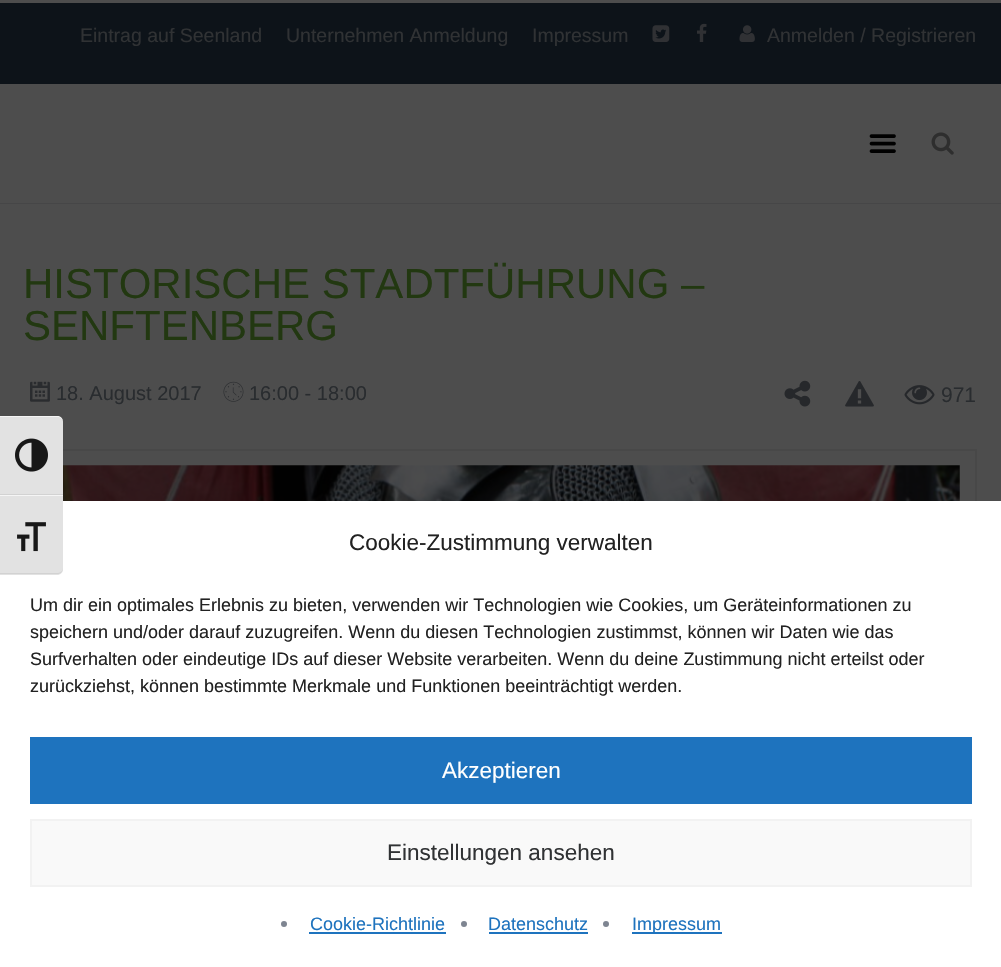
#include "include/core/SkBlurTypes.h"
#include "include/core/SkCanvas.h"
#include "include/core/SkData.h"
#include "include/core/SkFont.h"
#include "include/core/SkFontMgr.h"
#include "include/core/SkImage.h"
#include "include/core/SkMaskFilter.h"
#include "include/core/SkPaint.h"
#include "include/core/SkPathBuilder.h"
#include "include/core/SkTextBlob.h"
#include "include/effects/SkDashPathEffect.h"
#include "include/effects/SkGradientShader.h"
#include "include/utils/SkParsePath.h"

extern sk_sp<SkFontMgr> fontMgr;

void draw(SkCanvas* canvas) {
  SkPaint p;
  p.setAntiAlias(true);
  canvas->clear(SkColorSetRGB(77, 77, 77));
  p.setColor(SkColorSetRGB(13, 19, 25));
  canvas->drawRect(SkRect::MakeLTRB(0, 3, 1001, 84), p);
  canvas->drawImageRect(SkImages::DeferredFromEncodedData(SkData::MakeFromFileName("images/1.png")), SkRect::MakeLTRB(652, 25, 670, 42), SkSamplingOptions());
  canvas->drawImageRect(SkImages::DeferredFromEncodedData(SkData::MakeFromFileName("images/2.png")), SkRect::MakeLTRB(697, 23, 707, 42), SkSamplingOptions());
  canvas->drawImageRect(SkImages::DeferredFromEncodedData(SkData::MakeFromFileName("images/3.png")), SkRect::MakeLTRB(739, 25, 755, 42), SkSamplingOptions());
  p.setColor(SkColorSetARGB(51, 38, 40, 44));
  canvas->drawRect(SkRect::MakeLTRB(0, 203, 1001, 204), p);
  canvas->drawImageRect(SkImages::DeferredFromEncodedData(SkData::MakeFromFileName("images/4.png")), SkRect::MakeLTRB(869, 134, 896, 153), SkSamplingOptions());
  canvas->drawImageRect(SkImages::DeferredFromEncodedData(SkData::MakeFromFileName("images/5.png")), SkRect::MakeLTRB(931, 132, 954, 155), SkSamplingOptions());
  canvas->drawImageRect(SkImages::DeferredFromEncodedData(SkData::MakeFromFileName("images/6.png")), SkRect::MakeLTRB(30, 381, 50, 402), SkSamplingOptions());
  canvas->drawImageRect(SkImages::DeferredFromEncodedData(SkData::MakeFromFileName("images/7.png")), SkRect::MakeLTRB(223, 381, 244, 402), SkSamplingOptions());
  canvas->drawImageRect(SkImages::DeferredFromEncodedData(SkData::MakeFromFileName("images/8.png")), SkRect::MakeLTRB(784, 380, 811, 407), SkSamplingOptions());
  canvas->drawImageRect(SkImages::DeferredFromEncodedData(SkData::MakeFromFileName("images/9.png")), SkRect::MakeLTRB(845, 381, 874, 407), SkSamplingOptions());
  canvas->drawImageRect(SkImages::DeferredFromEncodedData(SkData::MakeFromFileName("images/10.png")), SkRect::MakeLTRB(904, 385, 935, 405), SkSamplingOptions());
  p.setStyle(SkPaint::kStroke_Style);
  p.setStrokeWidth(2);
  p.setColor(SkColorSetRGB(72, 72, 72));
  canvas->drawRect(SkRect::MakeLTRB(24, 450, 976, 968), p);
  canvas->drawImageRect(SkImages::DeferredFromEncodedData(SkData::MakeFromFileName("images/11.png")), SkRect::MakeLTRB(63, 465, 960, 501), SkSamplingOptions());
  p.setStyle(SkPaint::kFill_Style);
  p.setColor(SkColorSetRGB(226, 226, 226));
  canvas->drawPath(SkPathBuilder().moveTo(0, 416).lineTo(57, 416).cubicTo(60.5f, 416, 63, 418.5f, 63, 422).lineTo(63, 495).lineTo(0, 495).close().detach(), p);
  p.setColor(SkColorSetRGB(245, 245, 245));
  canvas->drawPath(SkPathBuilder().moveTo(0, 417).lineTo(57, 417).cubicTo(60, 417, 63, 419, 63, 422).cubicTo(63, 418, 60, 416, 57, 416).lineTo(0, 416).close().detach(), p);
  p.setColor(SkColorSetRGB(210, 210, 210));
  canvas->drawRect(SkRect::MakeLTRB(0, 494, 63, 495), p);
  canvas->drawImageRect(SkImages::DeferredFromEncodedData(SkData::MakeFromFileName("images/12.png")), SkRect::MakeLTRB(15, 438, 48, 472), SkSamplingOptions());
  p.setColor(SK_ColorWHITE);
  canvas->drawRect(SkRect::MakeLTRB(0, 501, 1001, 967), p);
  p.setColor(SkColorSetRGB(226, 226, 226));
  canvas->drawPath(SkPathBuilder().moveTo(0, 495).lineTo(63, 495).lineTo(63, 569).cubicTo(63, 572.5f, 60.5f, 575, 57, 575).lineTo(0, 575).close().detach(), p);
  p.setColor(SkColorSetRGB(245, 245, 245));
  canvas->drawRect(SkRect::MakeLTRB(0, 495, 63, 496), p);
  p.setColor(SkColorSetRGB(210, 210, 210));
  canvas->drawPath(SkPathBuilder().moveTo(0, 573).lineTo(0, 574).lineTo(57, 574).cubicTo(60, 574, 63, 572, 63, 568).cubicTo(63, 571, 60, 573, 57, 573).close().detach(), p);
  canvas->drawImageRect(SkImages::DeferredFromEncodedData(SkData::MakeFromFileName("images/13.png")), SkRect::MakeLTRB(17, 522, 46, 552), SkSamplingOptions());
  p.setColor(SkColorSetRGB(30, 115, 190));
  canvas->drawRect(SkRect::MakeLTRB(30, 737, 972, 804), p);
  p.setColor(SkColorSetRGB(249, 249, 249));
  canvas->drawRect(SkRect::MakeLTRB(31, 820, 971, 886), p);
  p.setStyle(SkPaint::kStroke_Style);
  p.setColor(SkColorSetRGB(242, 242, 242));
  canvas->drawRect(SkRect::MakeLTRB(31, 820, 971, 886), p);
  p.setStyle(SkPaint::kFill_Style);
  p.setColor(SkColorSetRGB(126, 133, 145));
  canvas->drawCircle(284, 924, 3, p);
  p.setColor(SkColorSetRGB(30, 115, 190));
  canvas->drawRect(SkRect::MakeLTRB(309, 932, 446, 934), p);
  p.setColor(SkColorSetRGB(126, 133, 145));
  canvas->drawCircle(464, 924, 3, p);
  p.setColor(SkColorSetRGB(30, 115, 190));
  canvas->drawRect(SkRect::MakeLTRB(489, 932, 588, 934), p);
  p.setColor(SkColorSetRGB(126, 133, 145));
  canvas->drawCircle(606, 924, 3, p);
  p.setColor(SkColorSetRGB(30, 115, 190));
  canvas->drawRect(SkRect::MakeLTRB(632, 932, 722, 934), p);
  SkFont font1(fontMgr->matchFamilyStyle("Liberation Sans", SkFontStyle::Normal()), 19.5f);
  font1.setSubpixel(true);
  p.setColor(SkColorSetRGB(48, 50, 52));
  canvas->drawString("Eintrag auf Seenland", 80, 42, font1, p);
  canvas->drawString("Unternehmen Anmeldung", 286, 42, font1, p);
  canvas->drawString("Impressum", 532, 42, font1, p);
  canvas->drawString("Anmelden / Registrieren", 767, 42, font1, p);
  SkFont font2(fontMgr->matchFamilyStyle("Liberation Sans", SkFontStyle::Normal()), 42);
  font2.setSubpixel(true);
  p.setColor(SkColorSetRGB(34, 56, 17));
  canvas->drawString("HISTORISCHE STADTFÜHRUNG –", 23, 298, font2, p);
  canvas->drawString("SENFTENBERG", 23, 340, font2, p);
  SkFont font3(fontMgr->matchFamilyStyle("Liberation Sans", SkFontStyle::Normal()), 20);
  font3.setSubpixel(true);
  p.setColor(SkColorSetRGB(41, 44, 47));
  canvas->drawString("18. August 2017", 56, 400, font3, p);
  canvas->drawString("16:00 - 18:00", 249, 400, font3, p);
  SkFont font4(fontMgr->matchFamilyStyle("Liberation Sans", SkFontStyle::Normal()), 21);
  font4.setSubpixel(true);
  canvas->drawString("971", 941, 402, font4, p);
  SkFont font5(fontMgr->matchFamilyStyle("Liberation Sans", SkFontStyle::Normal()), 22.5f);
  font5.setSubpixel(true);
  p.setColor(SkColorSetRGB(34, 34, 34));
  canvas->drawString("Cookie-Zustimmung verwalten", 349, 550, font5, p);
  SkFont font6(fontMgr->matchFamilyStyle("Liberation Sans", SkFontStyle::Normal()), 18);
  font6.setSubpixel(true);
  canvas->drawString("Um dir ein optimales Erlebnis zu bieten, verwenden wir Technologien wie Cookies, um Geräteinformationen zu", 30, 611, font6, p);
  canvas->drawString("speichern und/oder darauf zuzugreifen. Wenn du diesen Technologien zustimmst, können wir Daten wie das", 30, 638, font6, p);
  canvas->drawString("Surfverhalten oder eindeutige IDs auf dieser Website verarbeiten. Wenn du deine Zustimmung nicht erteilst oder", 30, 665, font6, p);
  canvas->drawString("zurückziehst, können bestimmte Merkmale und Funktionen beeinträchtigt werden.", 30, 692, font6, p);
  p.setColor(SK_ColorWHITE);
  canvas->drawString("Akzeptieren", 442, 778, font5, p);
  p.setColor(SkColorSetRGB(48, 50, 52));
  canvas->drawString("Einstellungen ansehen", 387, 860, font5, p);
  p.setColor(SkColorSetRGB(30, 115, 190));
  canvas->drawString("Cookie-Richtlinie", 310, 930, font6, p);
  canvas->drawString("Datenschutz", 488, 930, font6, p);
  canvas->drawString("Impressum", 632, 930, font6, p);
}
